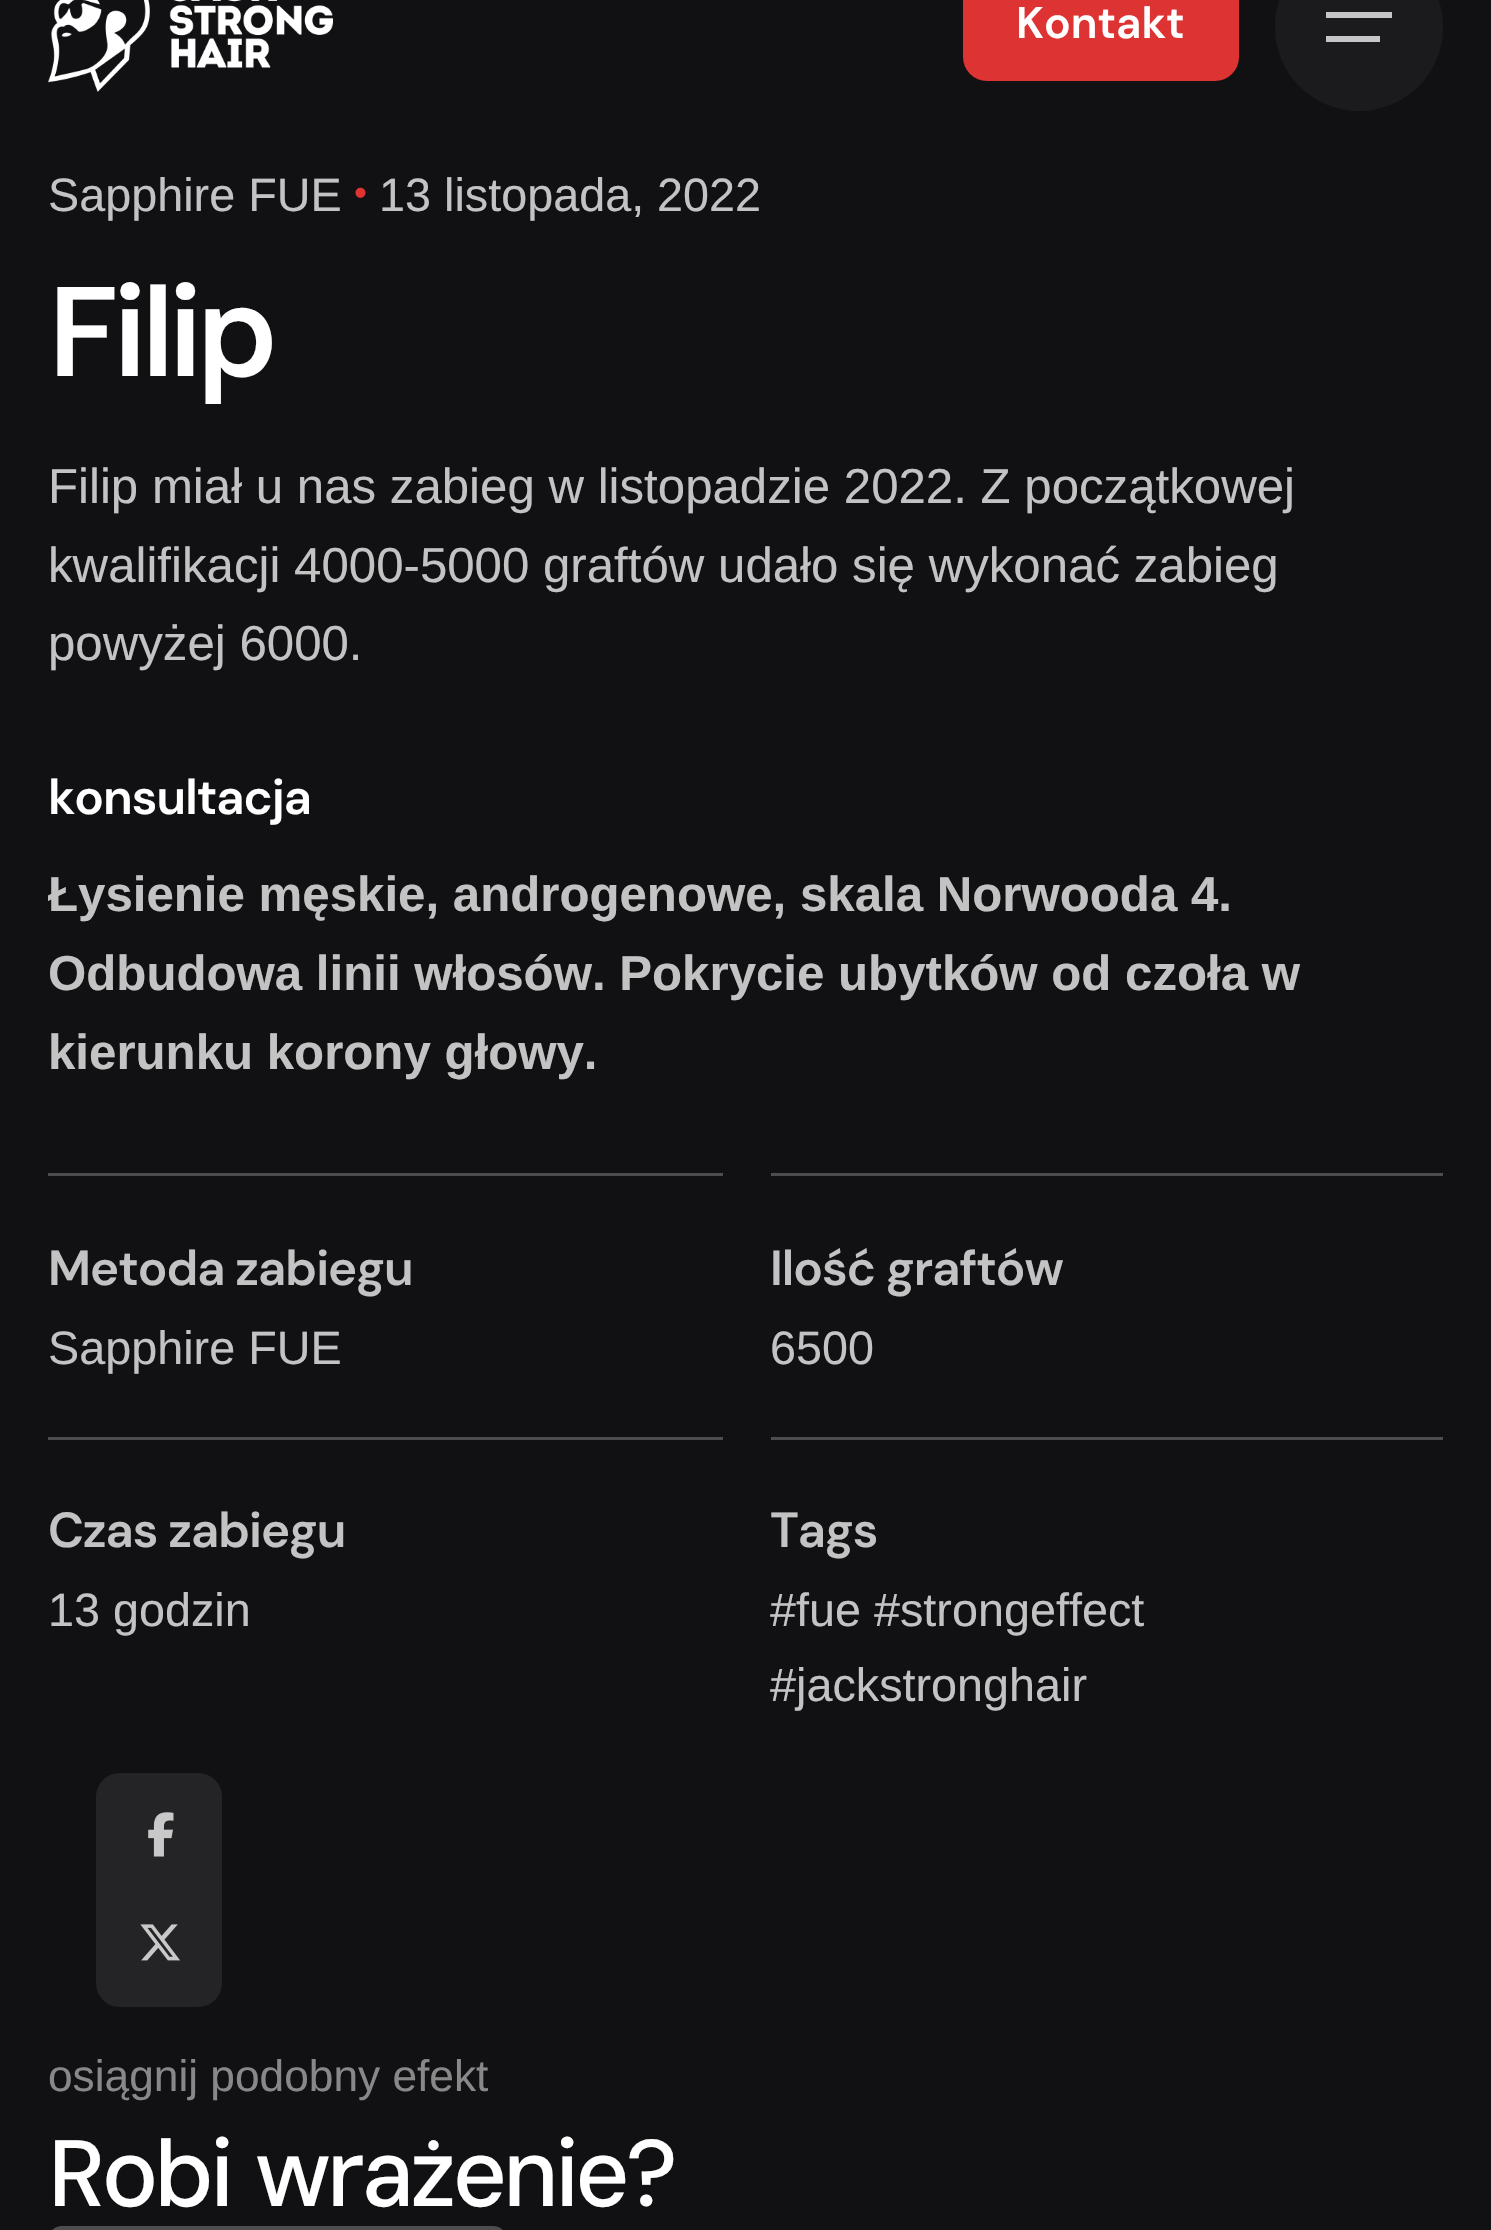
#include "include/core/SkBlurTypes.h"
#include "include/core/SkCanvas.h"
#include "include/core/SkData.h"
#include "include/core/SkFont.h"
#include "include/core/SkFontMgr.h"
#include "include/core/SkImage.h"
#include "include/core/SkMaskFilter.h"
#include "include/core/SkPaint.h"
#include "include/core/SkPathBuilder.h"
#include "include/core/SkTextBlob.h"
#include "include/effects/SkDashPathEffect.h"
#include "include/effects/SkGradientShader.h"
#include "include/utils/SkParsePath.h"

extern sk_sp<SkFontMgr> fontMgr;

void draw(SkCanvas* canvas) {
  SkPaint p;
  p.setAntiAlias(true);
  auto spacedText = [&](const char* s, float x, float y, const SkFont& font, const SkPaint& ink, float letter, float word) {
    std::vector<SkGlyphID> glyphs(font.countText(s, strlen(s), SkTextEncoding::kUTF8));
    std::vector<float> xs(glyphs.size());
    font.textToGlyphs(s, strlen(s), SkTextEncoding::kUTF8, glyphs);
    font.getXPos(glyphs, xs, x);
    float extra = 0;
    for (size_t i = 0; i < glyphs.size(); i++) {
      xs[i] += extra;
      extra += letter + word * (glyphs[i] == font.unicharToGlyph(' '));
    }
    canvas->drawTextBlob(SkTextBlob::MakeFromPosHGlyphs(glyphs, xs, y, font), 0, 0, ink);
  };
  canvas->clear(SkColorSetRGB(17, 16, 19));
  canvas->drawImageRect(SkImages::DeferredFromEncodedData(SkData::MakeFromFileName("images/1.png")), SkRect::MakeLTRB(48, 0, 333, 92), SkSamplingOptions());
  p.setColor(SkColorSetRGB(221, 51, 51));
  canvas->drawRoundRect(SkRect::MakeLTRB(963, -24, 1239, 81), 24, 24, p);
  p.setColor(SkColorSetRGB(27, 26, 28));
  canvas->drawCircle(1359, 27, 84, p);
  p.setColor(SkColorSetRGB(198, 198, 198));
  canvas->drawRect(SkRect::MakeLTRB(1326, 12, 1392, 18), p);
  canvas->drawRect(SkRect::MakeLTRB(1326, 36, 1380, 42), p);
  p.setColor(SkColorSetRGB(77, 76, 78));
  canvas->drawRect(SkRect::MakeLTRB(48, 1173, 723, 1176), p);
  canvas->drawRect(SkRect::MakeLTRB(771, 1173, 1443, 1176), p);
  canvas->drawRect(SkRect::MakeLTRB(48, 1437, 723, 1440), p);
  canvas->drawRect(SkRect::MakeLTRB(771, 1437, 1443, 1440), p);
  p.setColor(SkColorSetRGB(36, 35, 38));
  canvas->drawRoundRect(SkRect::MakeLTRB(96, 1773, 222, 2007), 24, 24, p);
  canvas->drawImageRect(SkImages::DeferredFromEncodedData(SkData::MakeFromFileName("images/2.png")), SkRect::MakeLTRB(148, 1812, 174, 1857), SkSamplingOptions());
  canvas->drawImageRect(SkImages::DeferredFromEncodedData(SkData::MakeFromFileName("images/3.png")), SkRect::MakeLTRB(140, 1924, 180, 1961), SkSamplingOptions());
  p.setColor(SkColorSetRGB(77, 76, 78));
  canvas->drawRoundRect(SkRect::MakeLTRB(48, 2226, 507, 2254), 24, 24, p);
  SkFont font1(fontMgr->matchFamilyStyle("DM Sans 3", SkFontStyle(600, SkFontStyle::kNormal_Width, SkFontStyle::kUpright_Slant)), 44.25f);
  font1.setSubpixel(true);
  p.setColor(SK_ColorWHITE);
  canvas->drawString("Kontakt", 1016, 38, font1, p);
  SkFont font2(fontMgr->matchFamilyStyle("Liberation Sans", SkFontStyle::Normal()), 46.75f);
  font2.setSubpixel(true);
  p.setColor(SkColorSetRGB(196, 195, 196));
  canvas->drawString("Sapphire FUE", 48, 211, font2, p);
  SkFont font3(fontMgr->matchFamilyStyle("Liberation Sans", SkFontStyle::Normal()), 37);
  font3.setSubpixel(true);
  p.setColor(SkColorSetRGB(221, 51, 51));
  canvas->drawString("•", 354, 205, font3, p);
  p.setColor(SkColorSetRGB(196, 195, 196));
  canvas->drawString("13 listopada, 2022", 379, 211, font2, p);
  SkFont font4(fontMgr->matchFamilyStyle("DM Sans", SkFontStyle(600, SkFontStyle::kNormal_Width, SkFontStyle::kUpright_Slant)), 127);
  font4.setSubpixel(true);
  p.setColor(SK_ColorWHITE);
  spacedText("Filip", 48, 376, font4, p, -5.75f, 0);
  SkFont font5(fontMgr->matchFamilyStyle("Liberation Sans", SkFontStyle::Normal()), 49.2f);
  font5.setSubpixel(true);
  p.setColor(SkColorSetRGB(196, 195, 196));
  canvas->drawString("Filip miał u nas zabieg w listopadzie 2022. Z początkowej", 48, 503, font5, p);
  canvas->drawString("kwalifikacji 4000-5000 graftów udało się wykonać zabieg", 48, 582, font5, p);
  canvas->drawString("powyżej 6000.", 48, 660, font5, p);
  SkFont font6(fontMgr->matchFamilyStyle("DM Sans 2", SkFontStyle(600, SkFontStyle::kNormal_Width, SkFontStyle::kUpright_Slant)), 49.2f);
  font6.setSubpixel(true);
  p.setColor(SK_ColorWHITE);
  spacedText("konsultacja", 48, 814, font6, p, -1, 0);
  SkFont font7(fontMgr->matchFamilyStyle("Liberation Sans", SkFontStyle::Bold()), 49.2f);
  font7.setSubpixel(true);
  p.setColor(SkColorSetRGB(196, 195, 196));
  canvas->drawString("Łysienie męskie, androgenowe, skala Norwooda 4.", 48, 911, font7, p);
  canvas->drawString("Odbudowa linii włosów. Pokrycie ubytków od czoła w", 48, 990, font7, p);
  canvas->drawString("kierunku korony głowy.", 48, 1069, font7, p);
  spacedText("Metoda zabiegu", 48, 1285, font6, p, -1, 0);
  canvas->drawString("Sapphire FUE", 48, 1364, font2, p);
  spacedText("Ilość graftów", 770, 1285, font6, p, -1, 0);
  canvas->drawString("6500", 770, 1364, font2, p);
  spacedText("Czas zabiegu", 48, 1547, font6, p, -1, 0);
  canvas->drawString("13 godzin", 48, 1626, font2, p);
  spacedText("Tags", 770, 1547, font6, p, -1, 0);
  canvas->drawString("#fue #strongeffect", 770, 1626, font2, p);
  canvas->drawString("#jackstronghair", 770, 1701, font2, p);
  SkFont font8(fontMgr->matchFamilyStyle("Liberation Sans", SkFontStyle::Normal()), 44.25f);
  font8.setSubpixel(true);
  p.setColor(SkColorSetRGB(136, 136, 137));
  canvas->drawString("osiągnij podobny efekt", 48, 2091, font8, p);
  SkFont font9(fontMgr->matchFamilyStyle("DM Sans", SkFontStyle(500, SkFontStyle::kNormal_Width, SkFontStyle::kUpright_Slant)), 94);
  font9.setSubpixel(true);
  p.setColor(SK_ColorWHITE);
  spacedText("Robi wrażenie?", 48, 2206, font9, p, -3.75f, 4);
}
